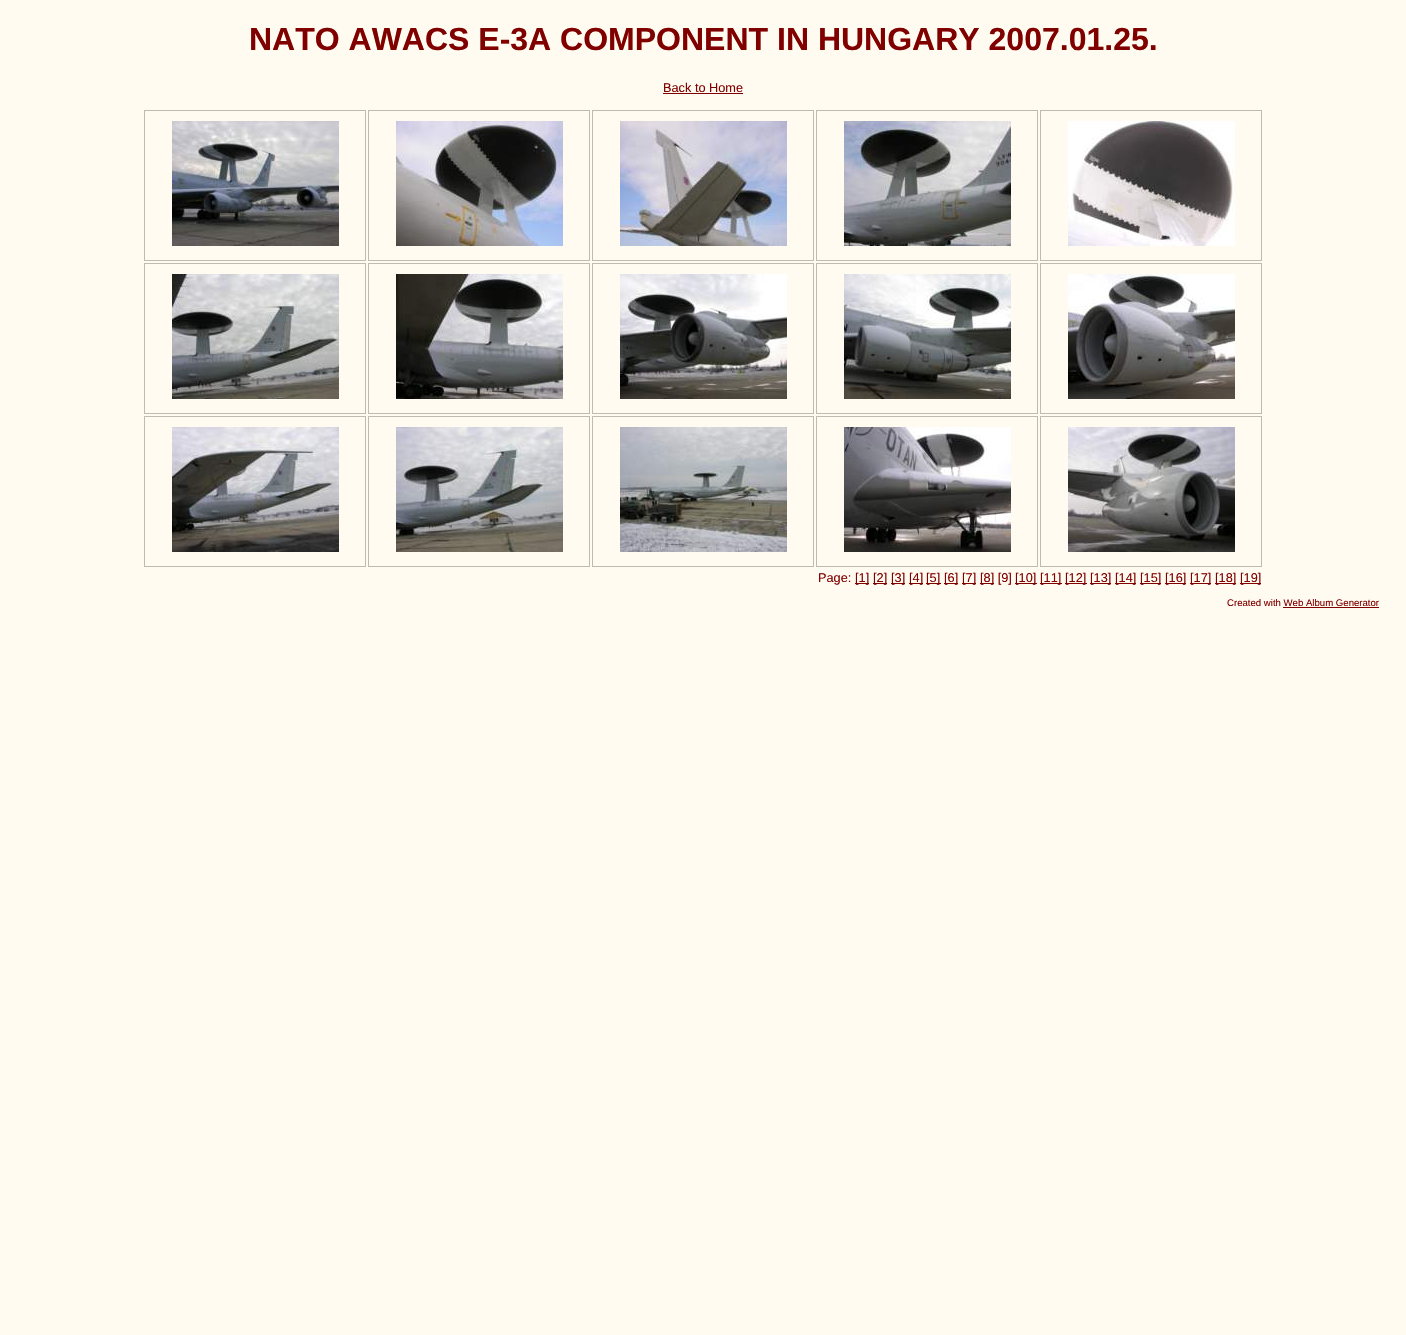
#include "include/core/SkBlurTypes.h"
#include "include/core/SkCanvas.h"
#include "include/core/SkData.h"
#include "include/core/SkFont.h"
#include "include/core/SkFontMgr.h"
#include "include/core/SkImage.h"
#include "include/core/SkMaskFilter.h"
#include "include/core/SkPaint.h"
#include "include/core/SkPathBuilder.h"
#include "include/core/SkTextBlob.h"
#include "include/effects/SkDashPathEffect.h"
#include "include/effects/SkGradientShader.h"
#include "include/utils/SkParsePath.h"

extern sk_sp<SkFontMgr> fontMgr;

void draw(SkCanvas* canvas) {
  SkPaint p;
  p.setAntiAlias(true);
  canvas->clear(SkColorSetRGB(255, 251, 240));
  p.setColor(SkColorSetRGB(128, 0, 0));
  canvas->drawRect(SkRect::MakeLTRB(663, 93, 743, 94), p);
  p.setStyle(SkPaint::kStroke_Style);
  p.setStrokeWidth(1);
  p.setColor(SkColorSetRGB(191, 187, 176));
  canvas->drawRect(SkRect::MakeLTRB(144.5f, 110.5f, 365.5f, 260.5f), p);
  canvas->drawImageRect(SkImages::DeferredFromEncodedData(SkData::MakeFromFileName("images/1.png")), SkRect::MakeLTRB(172, 121, 339, 246), SkSamplingOptions());
  canvas->drawRect(SkRect::MakeLTRB(368.5f, 110.5f, 589.5f, 260.5f), p);
  canvas->drawImageRect(SkImages::DeferredFromEncodedData(SkData::MakeFromFileName("images/2.png")), SkRect::MakeLTRB(396, 121, 563, 246), SkSamplingOptions());
  canvas->drawRect(SkRect::MakeLTRB(592.5f, 110.5f, 813.5f, 260.5f), p);
  canvas->drawImageRect(SkImages::DeferredFromEncodedData(SkData::MakeFromFileName("images/3.png")), SkRect::MakeLTRB(620, 121, 787, 246), SkSamplingOptions());
  canvas->drawRect(SkRect::MakeLTRB(816.5f, 110.5f, 1037.5f, 260.5f), p);
  canvas->drawImageRect(SkImages::DeferredFromEncodedData(SkData::MakeFromFileName("images/4.png")), SkRect::MakeLTRB(844, 121, 1011, 246), SkSamplingOptions());
  canvas->drawRect(SkRect::MakeLTRB(1040.5f, 110.5f, 1261.5f, 260.5f), p);
  canvas->drawImageRect(SkImages::DeferredFromEncodedData(SkData::MakeFromFileName("images/5.png")), SkRect::MakeLTRB(1068, 121, 1235, 246), SkSamplingOptions());
  canvas->drawRect(SkRect::MakeLTRB(144.5f, 263.5f, 365.5f, 413.5f), p);
  canvas->drawImageRect(SkImages::DeferredFromEncodedData(SkData::MakeFromFileName("images/6.png")), SkRect::MakeLTRB(172, 274, 339, 399), SkSamplingOptions());
  canvas->drawRect(SkRect::MakeLTRB(368.5f, 263.5f, 589.5f, 413.5f), p);
  canvas->drawImageRect(SkImages::DeferredFromEncodedData(SkData::MakeFromFileName("images/7.png")), SkRect::MakeLTRB(396, 274, 563, 399), SkSamplingOptions());
  canvas->drawRect(SkRect::MakeLTRB(592.5f, 263.5f, 813.5f, 413.5f), p);
  canvas->drawImageRect(SkImages::DeferredFromEncodedData(SkData::MakeFromFileName("images/8.png")), SkRect::MakeLTRB(620, 274, 787, 399), SkSamplingOptions());
  canvas->drawRect(SkRect::MakeLTRB(816.5f, 263.5f, 1037.5f, 413.5f), p);
  canvas->drawImageRect(SkImages::DeferredFromEncodedData(SkData::MakeFromFileName("images/9.png")), SkRect::MakeLTRB(844, 274, 1011, 399), SkSamplingOptions());
  canvas->drawRect(SkRect::MakeLTRB(1040.5f, 263.5f, 1261.5f, 413.5f), p);
  canvas->drawImageRect(SkImages::DeferredFromEncodedData(SkData::MakeFromFileName("images/10.png")), SkRect::MakeLTRB(1068, 274, 1235, 399), SkSamplingOptions());
  canvas->drawRect(SkRect::MakeLTRB(144.5f, 416.5f, 365.5f, 566.5f), p);
  canvas->drawImageRect(SkImages::DeferredFromEncodedData(SkData::MakeFromFileName("images/11.png")), SkRect::MakeLTRB(172, 427, 339, 552), SkSamplingOptions());
  canvas->drawRect(SkRect::MakeLTRB(368.5f, 416.5f, 589.5f, 566.5f), p);
  canvas->drawImageRect(SkImages::DeferredFromEncodedData(SkData::MakeFromFileName("images/12.png")), SkRect::MakeLTRB(396, 427, 563, 552), SkSamplingOptions());
  canvas->drawRect(SkRect::MakeLTRB(592.5f, 416.5f, 813.5f, 566.5f), p);
  canvas->drawImageRect(SkImages::DeferredFromEncodedData(SkData::MakeFromFileName("images/13.png")), SkRect::MakeLTRB(620, 427, 787, 552), SkSamplingOptions());
  canvas->drawRect(SkRect::MakeLTRB(816.5f, 416.5f, 1037.5f, 566.5f), p);
  canvas->drawImageRect(SkImages::DeferredFromEncodedData(SkData::MakeFromFileName("images/14.png")), SkRect::MakeLTRB(844, 427, 1011, 552), SkSamplingOptions());
  canvas->drawRect(SkRect::MakeLTRB(1040.5f, 416.5f, 1261.5f, 566.5f), p);
  canvas->drawImageRect(SkImages::DeferredFromEncodedData(SkData::MakeFromFileName("images/15.png")), SkRect::MakeLTRB(1068, 427, 1235, 552), SkSamplingOptions());
  p.setStyle(SkPaint::kFill_Style);
  p.setColor(SkColorSetRGB(128, 0, 0));
  canvas->drawRect(SkRect::MakeLTRB(855, 583, 869, 584), p);
  canvas->drawRect(SkRect::MakeLTRB(873, 583, 887, 584), p);
  canvas->drawRect(SkRect::MakeLTRB(891, 583, 905, 584), p);
  canvas->drawRect(SkRect::MakeLTRB(909, 583, 923, 584), p);
  canvas->drawRect(SkRect::MakeLTRB(926, 583, 941, 584), p);
  canvas->drawRect(SkRect::MakeLTRB(944, 583, 958, 584), p);
  canvas->drawRect(SkRect::MakeLTRB(962, 583, 976, 584), p);
  canvas->drawRect(SkRect::MakeLTRB(980, 583, 994, 584), p);
  canvas->drawRect(SkRect::MakeLTRB(1015, 583, 1037, 584), p);
  canvas->drawRect(SkRect::MakeLTRB(1040, 583, 1062, 584), p);
  canvas->drawRect(SkRect::MakeLTRB(1065, 583, 1087, 584), p);
  canvas->drawRect(SkRect::MakeLTRB(1090, 583, 1111, 584), p);
  canvas->drawRect(SkRect::MakeLTRB(1115, 583, 1136, 584), p);
  canvas->drawRect(SkRect::MakeLTRB(1140, 583, 1161, 584), p);
  canvas->drawRect(SkRect::MakeLTRB(1165, 583, 1186, 584), p);
  canvas->drawRect(SkRect::MakeLTRB(1190, 583, 1211, 584), p);
  canvas->drawRect(SkRect::MakeLTRB(1215, 583, 1236, 584), p);
  canvas->drawRect(SkRect::MakeLTRB(1240, 583, 1261, 584), p);
  canvas->drawRect(SkRect::MakeLTRB(1283, 607, 1379, 608), p);
  SkFont font1(fontMgr->matchFamilyStyle("Liberation Sans", SkFontStyle::Bold()), 32);
  font1.setSubpixel(true);
  canvas->drawString("NATO AWACS E-3A COMPONENT IN HUNGARY 2007.01.25.", 249, 50, font1, p);
  SkFont font2(fontMgr->matchFamilyStyle("Liberation Sans", SkFontStyle::Normal()), 12.75f);
  font2.setSubpixel(true);
  canvas->drawString("Back to Home", 663, 92, font2, p);
  canvas->drawString("Page:", 818, 582, font2, p);
  canvas->drawString("[1]", 855, 582, font2, p);
  canvas->drawString("[2]", 873, 582, font2, p);
  canvas->drawString("[3]", 891, 582, font2, p);
  canvas->drawString("[4]", 909, 582, font2, p);
  canvas->drawString("[5]", 926, 582, font2, p);
  canvas->drawString("[6]", 944, 582, font2, p);
  canvas->drawString("[7]", 962, 582, font2, p);
  canvas->drawString("[8] [9]", 980, 582, font2, p);
  canvas->drawString("[10]", 1015, 582, font2, p);
  canvas->drawString("[11]", 1040, 582, font2, p);
  canvas->drawString("[12]", 1065, 582, font2, p);
  canvas->drawString("[13]", 1090, 582, font2, p);
  canvas->drawString("[14]", 1115, 582, font2, p);
  canvas->drawString("[15]", 1140, 582, font2, p);
  canvas->drawString("[16]", 1165, 582, font2, p);
  canvas->drawString("[17]", 1190, 582, font2, p);
  canvas->drawString("[18]", 1215, 582, font2, p);
  canvas->drawString("[19]", 1240, 582, font2, p);
  SkFont font3(fontMgr->matchFamilyStyle("Liberation Sans", SkFontStyle::Normal()), 9.6f);
  font3.setSubpixel(true);
  canvas->drawString("Created with Web Album Generator", 1227, 606, font3, p);
}
